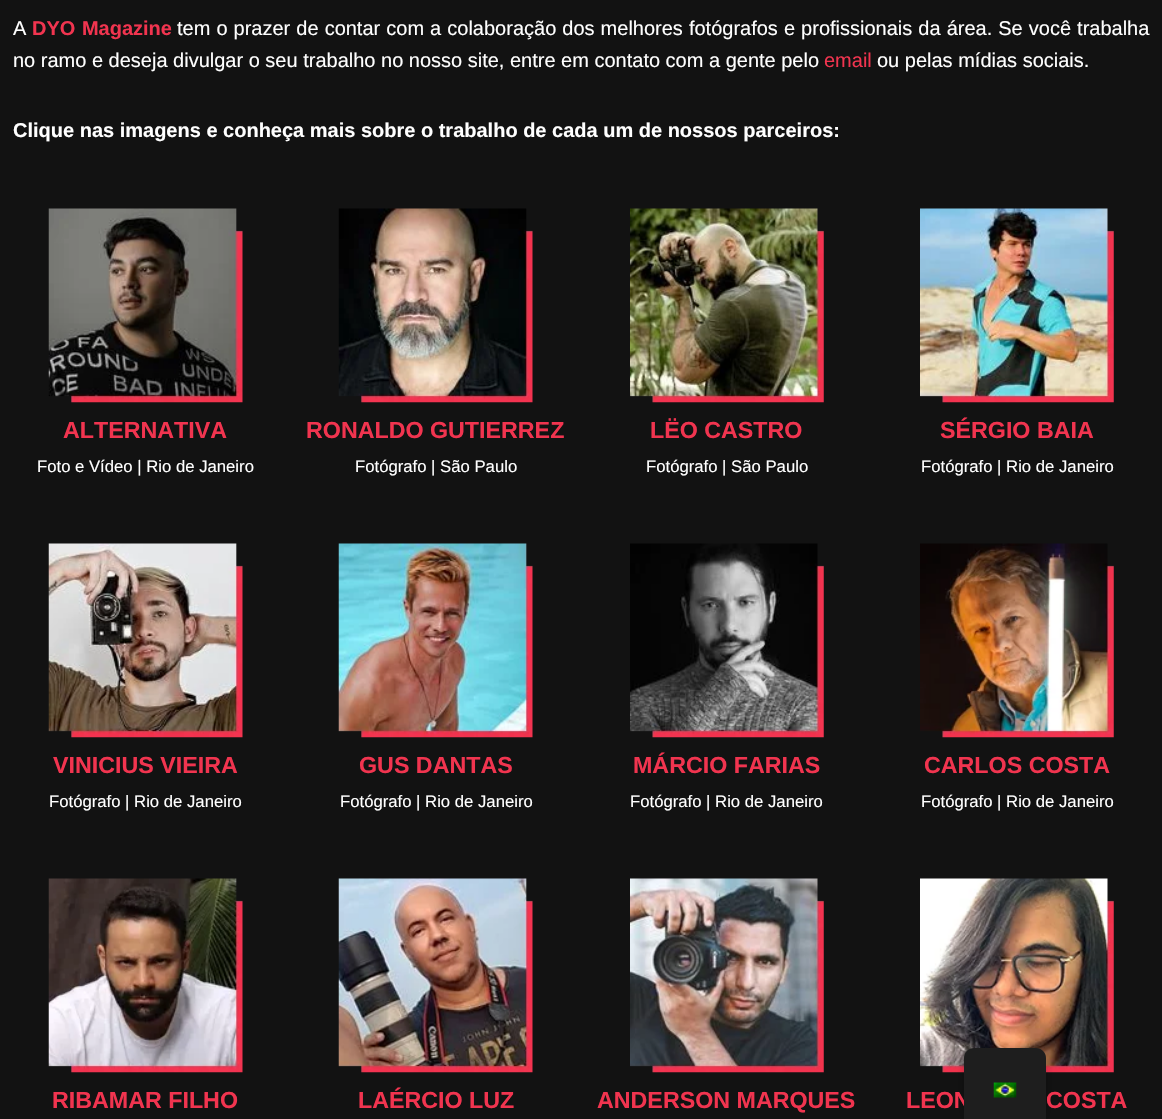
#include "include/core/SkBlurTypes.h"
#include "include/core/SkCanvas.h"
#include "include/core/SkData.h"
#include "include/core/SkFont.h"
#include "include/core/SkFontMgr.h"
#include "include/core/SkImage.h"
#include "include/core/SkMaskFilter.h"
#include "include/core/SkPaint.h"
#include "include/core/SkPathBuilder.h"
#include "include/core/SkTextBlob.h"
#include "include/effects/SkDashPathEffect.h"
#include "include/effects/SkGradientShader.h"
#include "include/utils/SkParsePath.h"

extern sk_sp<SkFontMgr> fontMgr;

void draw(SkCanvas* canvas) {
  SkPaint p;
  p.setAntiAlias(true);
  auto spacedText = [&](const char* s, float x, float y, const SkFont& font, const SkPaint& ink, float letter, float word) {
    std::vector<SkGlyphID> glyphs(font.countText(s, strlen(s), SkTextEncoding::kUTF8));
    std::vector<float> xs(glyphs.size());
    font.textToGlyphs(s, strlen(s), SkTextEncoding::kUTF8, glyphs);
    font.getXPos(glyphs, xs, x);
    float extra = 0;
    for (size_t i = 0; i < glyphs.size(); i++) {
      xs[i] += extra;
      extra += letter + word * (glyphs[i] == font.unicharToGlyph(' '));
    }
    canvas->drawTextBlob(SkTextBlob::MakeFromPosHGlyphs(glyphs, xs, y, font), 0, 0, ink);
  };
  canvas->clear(SkColorSetRGB(18, 18, 18));
  canvas->drawImageRect(SkImages::DeferredFromEncodedData(SkData::MakeFromFileName("images/1.png")), SkRect::MakeLTRB(48, 208, 243, 403), SkSamplingOptions());
  canvas->drawImageRect(SkImages::DeferredFromEncodedData(SkData::MakeFromFileName("images/2.png")), SkRect::MakeLTRB(338, 208, 533, 403), SkSamplingOptions());
  canvas->drawImageRect(SkImages::DeferredFromEncodedData(SkData::MakeFromFileName("images/3.png")), SkRect::MakeLTRB(630, 208, 824, 403), SkSamplingOptions());
  canvas->drawImageRect(SkImages::DeferredFromEncodedData(SkData::MakeFromFileName("images/4.png")), SkRect::MakeLTRB(920, 208, 1114, 403), SkSamplingOptions());
  canvas->drawImageRect(SkImages::DeferredFromEncodedData(SkData::MakeFromFileName("images/5.png")), SkRect::MakeLTRB(48, 543, 243, 738), SkSamplingOptions());
  canvas->drawImageRect(SkImages::DeferredFromEncodedData(SkData::MakeFromFileName("images/6.png")), SkRect::MakeLTRB(338, 543, 533, 738), SkSamplingOptions());
  canvas->drawImageRect(SkImages::DeferredFromEncodedData(SkData::MakeFromFileName("images/7.png")), SkRect::MakeLTRB(630, 543, 824, 738), SkSamplingOptions());
  canvas->drawImageRect(SkImages::DeferredFromEncodedData(SkData::MakeFromFileName("images/8.png")), SkRect::MakeLTRB(920, 543, 1114, 738), SkSamplingOptions());
  canvas->drawImageRect(SkImages::DeferredFromEncodedData(SkData::MakeFromFileName("images/9.png")), SkRect::MakeLTRB(48, 878, 243, 1073), SkSamplingOptions());
  canvas->drawImageRect(SkImages::DeferredFromEncodedData(SkData::MakeFromFileName("images/10.png")), SkRect::MakeLTRB(338, 878, 533, 1073), SkSamplingOptions());
  canvas->drawImageRect(SkImages::DeferredFromEncodedData(SkData::MakeFromFileName("images/11.png")), SkRect::MakeLTRB(630, 878, 824, 1073), SkSamplingOptions());
  canvas->drawImageRect(SkImages::DeferredFromEncodedData(SkData::MakeFromFileName("images/12.png")), SkRect::MakeLTRB(920, 878, 1114, 1073), SkSamplingOptions());
  p.setColor(SkColorSetARGB(64, 0, 0, 0));
  p.setMaskFilter(SkMaskFilter::MakeBlur(kNormal_SkBlurStyle, 5));
  canvas->drawRoundRect(SkRect::MakeLTRB(964, 1048, 1046, 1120), 10, 10, p);
  p.setMaskFilter(nullptr);
  SkFont font1(fontMgr->matchFamilyStyle("Liberation Sans", SkFontStyle::Normal()), 20);
  font1.setSubpixel(true);
  p.setColor(SK_ColorWHITE);
  canvas->drawString("A", 13, 35, font1, p);
  SkFont font2(fontMgr->matchFamilyStyle("Liberation Sans", SkFontStyle::Bold()), 20);
  font2.setSubpixel(true);
  p.setColor(SkColorSetRGB(241, 52, 79));
  spacedText("DYO Magazine", 32, 35, font2, p, 0, 1);
  p.setColor(SK_ColorWHITE);
  spacedText("tem o prazer de contar com a colaboração dos melhores fotógrafos e profissionais da área. Se você trabalha", 177, 35, font1, p, 0, 0.5f);
  canvas->drawString("no ramo e deseja divulgar o seu trabalho no nosso site, entre em contato com a gente pelo", 13, 67, font1, p);
  p.setColor(SkColorSetRGB(241, 52, 79));
  canvas->drawString("email", 824, 67, font1, p);
  p.setColor(SK_ColorWHITE);
  canvas->drawString("ou pelas mídias sociais.", 877, 67, font1, p);
  canvas->drawString("Clique nas imagens e conheça mais sobre o trabalho de cada um de nossos parceiros:", 13, 137, font2, p);
  SkFont font3(fontMgr->matchFamilyStyle("Liberation Sans", SkFontStyle::Bold()), 23.25f);
  font3.setSubpixel(true);
  p.setColor(SkColorSetRGB(241, 52, 79));
  canvas->drawString("ALTERNATIVA", 63, 438, font3, p);
  SkFont font4(fontMgr->matchFamilyStyle("Liberation Sans", SkFontStyle::Normal()), 16.7f);
  font4.setSubpixel(true);
  p.setColor(SK_ColorWHITE);
  canvas->drawString("Foto e Vídeo | Rio de Janeiro", 37, 472, font4, p);
  p.setColor(SkColorSetRGB(241, 52, 79));
  canvas->drawString("RONALDO GUTIERREZ", 306, 438, font3, p);
  p.setColor(SK_ColorWHITE);
  canvas->drawString("Fotógrafo | São Paulo", 355, 472, font4, p);
  p.setColor(SkColorSetRGB(241, 52, 79));
  canvas->drawString("LËO CASTRO", 650, 438, font3, p);
  p.setColor(SK_ColorWHITE);
  canvas->drawString("Fotógrafo | São Paulo", 646, 472, font4, p);
  p.setColor(SkColorSetRGB(241, 52, 79));
  canvas->drawString("SÉRGIO BAIA", 940, 438, font3, p);
  p.setColor(SK_ColorWHITE);
  canvas->drawString("Fotógrafo | Rio de Janeiro", 921, 472, font4, p);
  p.setColor(SkColorSetRGB(241, 52, 79));
  canvas->drawString("VINICIUS VIEIRA", 53, 773, font3, p);
  p.setColor(SK_ColorWHITE);
  canvas->drawString("Fotógrafo | Rio de Janeiro", 49, 807, font4, p);
  p.setColor(SkColorSetRGB(241, 52, 79));
  canvas->drawString("GUS DANTAS", 359, 773, font3, p);
  p.setColor(SK_ColorWHITE);
  canvas->drawString("Fotógrafo | Rio de Janeiro", 340, 807, font4, p);
  p.setColor(SkColorSetRGB(241, 52, 79));
  canvas->drawString("MÁRCIO FARIAS", 633, 773, font3, p);
  p.setColor(SK_ColorWHITE);
  canvas->drawString("Fotógrafo | Rio de Janeiro", 630, 807, font4, p);
  p.setColor(SkColorSetRGB(241, 52, 79));
  canvas->drawString("CARLOS COSTA", 924, 773, font3, p);
  p.setColor(SK_ColorWHITE);
  canvas->drawString("Fotógrafo | Rio de Janeiro", 921, 807, font4, p);
  p.setColor(SkColorSetRGB(241, 52, 79));
  canvas->drawString("RIBAMAR FILHO", 52, 1108, font3, p);
  canvas->drawString("LAÉRCIO LUZ", 358, 1108, font3, p);
  canvas->drawString("ANDERSON MARQUES", 597, 1108, font3, p);
  canvas->drawString("LEON", 906, 1108, font3, p);
  canvas->drawString("COSTA", 1046, 1108, font3, p);
  p.setColor(SkColorSetRGB(30, 30, 30));
  canvas->drawPath(SkPathBuilder().moveTo(974, 1048).lineTo(1036, 1048).cubicTo(1041.5f, 1048, 1046, 1052.5f, 1046, 1058).lineTo(1046, 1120).lineTo(964, 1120).lineTo(964, 1058).cubicTo(964, 1052.5f, 968.5f, 1048, 974, 1048).close().detach(), p);
  canvas->drawImageRect(SkImages::DeferredFromEncodedData(SkData::MakeFromFileName("images/13.png")), SkRect::MakeLTRB(993, 1082, 1017, 1098), SkSamplingOptions());
}
